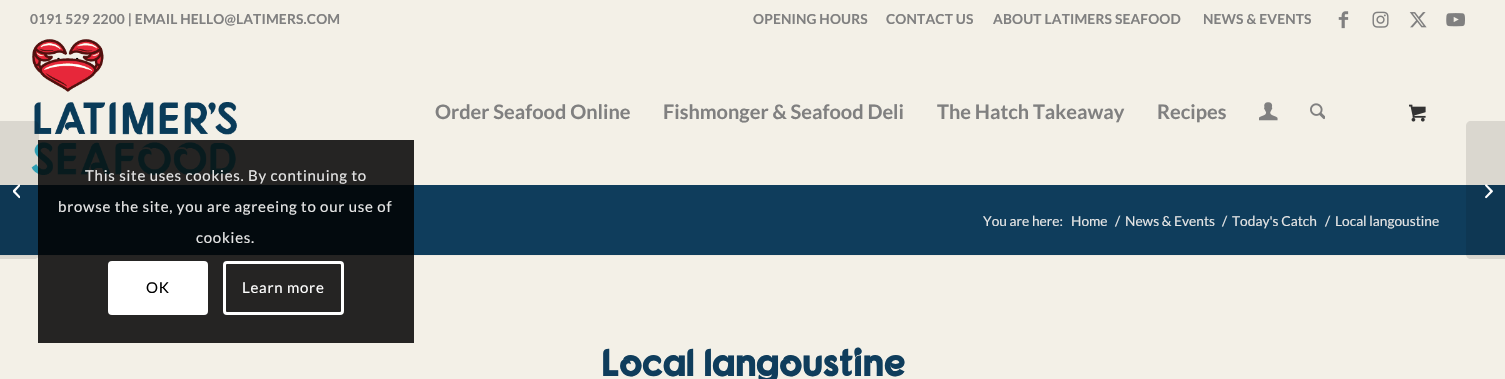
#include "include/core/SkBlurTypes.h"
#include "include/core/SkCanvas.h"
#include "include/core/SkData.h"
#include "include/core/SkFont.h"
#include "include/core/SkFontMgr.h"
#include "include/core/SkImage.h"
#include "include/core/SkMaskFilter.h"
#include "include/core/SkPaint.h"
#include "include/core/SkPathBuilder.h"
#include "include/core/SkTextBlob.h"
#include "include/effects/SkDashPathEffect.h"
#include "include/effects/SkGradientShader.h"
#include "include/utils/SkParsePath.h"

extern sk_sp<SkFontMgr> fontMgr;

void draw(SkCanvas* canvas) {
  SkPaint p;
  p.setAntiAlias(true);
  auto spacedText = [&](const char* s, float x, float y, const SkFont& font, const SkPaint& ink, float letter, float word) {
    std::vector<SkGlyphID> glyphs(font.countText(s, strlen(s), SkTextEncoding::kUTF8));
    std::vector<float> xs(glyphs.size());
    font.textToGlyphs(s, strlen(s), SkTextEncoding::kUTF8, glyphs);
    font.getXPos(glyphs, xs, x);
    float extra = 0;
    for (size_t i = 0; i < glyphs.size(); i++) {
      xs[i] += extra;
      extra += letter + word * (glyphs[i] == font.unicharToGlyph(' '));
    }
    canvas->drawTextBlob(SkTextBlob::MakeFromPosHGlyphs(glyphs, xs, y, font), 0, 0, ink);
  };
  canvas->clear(SkColorSetRGB(243, 240, 231));
  canvas->drawImageRect(SkImages::DeferredFromEncodedData(SkData::MakeFromFileName("images/1.png")), SkRect::MakeLTRB(1338, 11, 1349, 29), SkSamplingOptions());
  canvas->drawImageRect(SkImages::DeferredFromEncodedData(SkData::MakeFromFileName("images/2.png")), SkRect::MakeLTRB(1372, 11, 1389, 28), SkSamplingOptions());
  canvas->drawImageRect(SkImages::DeferredFromEncodedData(SkData::MakeFromFileName("images/3.png")), SkRect::MakeLTRB(1409, 12, 1427, 28), SkSamplingOptions());
  canvas->drawImageRect(SkImages::DeferredFromEncodedData(SkData::MakeFromFileName("images/4.png")), SkRect::MakeLTRB(1446, 13, 1465, 27), SkSamplingOptions());
  canvas->drawImageRect(SkImages::DeferredFromEncodedData(SkData::MakeFromFileName("images/5.png")), SkRect::MakeLTRB(31, 39, 237, 175), SkSamplingOptions());
  canvas->drawImageRect(SkImages::DeferredFromEncodedData(SkData::MakeFromFileName("images/6.png")), SkRect::MakeLTRB(1259, 102, 1278, 121), SkSamplingOptions());
  canvas->drawImageRect(SkImages::DeferredFromEncodedData(SkData::MakeFromFileName("images/7.png")), SkRect::MakeLTRB(1310, 103, 1325, 120), SkSamplingOptions());
  canvas->drawImageRect(SkImages::DeferredFromEncodedData(SkData::MakeFromFileName("images/8.png")), SkRect::MakeLTRB(1409, 104, 1426, 122), SkSamplingOptions());
  p.setColor(SkColorSetRGB(15, 61, 92));
  canvas->drawRect(SkRect::MakeLTRB(0, 185, 1505, 255), p);
  p.setColor(SkColorSetRGB(237, 234, 225));
  canvas->drawRect(SkRect::MakeLTRB(0, 255, 1505, 256), p);
  p.setColor(SkColorSetARGB(26, 0, 0, 0));
  canvas->drawPath(SkPathBuilder().moveTo(0, 121).lineTo(34, 121).cubicTo(37, 121, 39, 123, 39, 126).lineTo(39, 254).cubicTo(39, 257, 37, 259, 34, 259).lineTo(0, 259).close().detach(), p);
  canvas->drawImageRect(SkImages::DeferredFromEncodedData(SkData::MakeFromFileName("images/9.png")), SkRect::MakeLTRB(13, 184, 20, 199), SkSamplingOptions());
  canvas->drawPath(SkPathBuilder().moveTo(1471, 121).lineTo(1505, 121).lineTo(1505, 259).lineTo(1471, 259).cubicTo(1468, 259, 1466, 257, 1466, 254).lineTo(1466, 126).cubicTo(1466, 123, 1468, 121, 1471, 121).close().detach(), p);
  canvas->drawImageRect(SkImages::DeferredFromEncodedData(SkData::MakeFromFileName("images/10.png")), SkRect::MakeLTRB(1485, 184, 1493, 199), SkSamplingOptions());
  p.setColor(SkColorSetARGB(217, 0, 0, 0));
  canvas->drawRect(SkRect::MakeLTRB(38, 140, 414, 343), p);
  p.setColor(SK_ColorWHITE);
  canvas->drawRoundRect(SkRect::MakeLTRB(108, 261, 208, 315), 4, 4, p);
  p.setStyle(SkPaint::kStroke_Style);
  p.setStrokeWidth(3);
  canvas->drawRoundRect(SkRect::MakeLTRB(224.5f, 262.5f, 342.5f, 313.5f), 2.5f, 2.5f, p);
  SkFont font1(fontMgr->matchFamilyStyle("Lato", SkFontStyle::Bold()), 13.75f);
  font1.setSubpixel(true);
  p.setStyle(SkPaint::kFill_Style);
  p.setColor(SkColorSetRGB(128, 128, 128));
  spacedText("0191 529 2200 | EMAIL HELLO@LATIMERS.COM", 30, 24, font1, p, 0.15f, 0);
  spacedText("OPENING HOURS", 753, 24, font1, p, 0.15f, 0);
  spacedText("CONTACT US", 886, 24, font1, p, 0.15f, 0);
  spacedText("ABOUT LATIMERS SEAFOOD", 993, 24, font1, p, 0.15f, 0);
  spacedText("NEWS & EVENTS", 1203, 24, font1, p, 0.15f, 0);
  SkFont font2(fontMgr->matchFamilyStyle("Lato", SkFontStyle::Bold()), 20);
  font2.setSubpixel(true);
  canvas->drawString("Order Seafood Online", 435, 119, font2, p);
  canvas->drawString("Fishmonger & Seafood Deli", 663, 119, font2, p);
  canvas->drawString("The Hatch Takeaway", 937, 119, font2, p);
  canvas->drawString("Recipes", 1157, 119, font2, p);
  SkFont font3(fontMgr->matchFamilyStyle("Lato", SkFontStyle::Normal()), 13.75f);
  font3.setSubpixel(true);
  p.setColor(SkColorSetRGB(229, 229, 229));
  canvas->drawString("You are here:", 983, 226, font3, p);
  canvas->drawString("Home", 1071, 226, font3, p);
  canvas->drawString("/", 1115, 226, font3, p);
  canvas->drawString("News & Events", 1125, 226, font3, p);
  canvas->drawString("/", 1222, 226, font3, p);
  canvas->drawString("Today's Catch", 1232, 226, font3, p);
  canvas->drawString("/", 1325, 226, font3, p);
  canvas->drawString("Local langoustine", 1335, 226, font3, p);
  SkFont font4(fontMgr->matchFamilyStyle("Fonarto", SkFontStyle::Bold()), 37.5f);
  font4.setSubpixel(true);
  p.setColor(SkColorSetRGB(15, 61, 92));
  canvas->drawString("Local langoustine", 601, 376, font4, p);
  SkFont font5(fontMgr->matchFamilyStyle("Lato", SkFontStyle::Normal()), 15);
  font5.setSubpixel(true);
  p.setColor(SkColorSetRGB(229, 229, 229));
  spacedText("This site uses cookies. By continuing to", 85, 181, font5, p, 0.75f, 0);
  spacedText("browse the site, you are agreeing to our use of", 58, 212, font5, p, 0.75f, 0);
  spacedText("cookies.", 196, 243, font5, p, 0.75f, 0);
  p.setColor(SK_ColorBLACK);
  spacedText("OK", 146, 293, font5, p, 0.75f, 0);
  p.setColor(SK_ColorWHITE);
  spacedText("Learn more", 242, 293, font5, p, 0.75f, 0);
}
